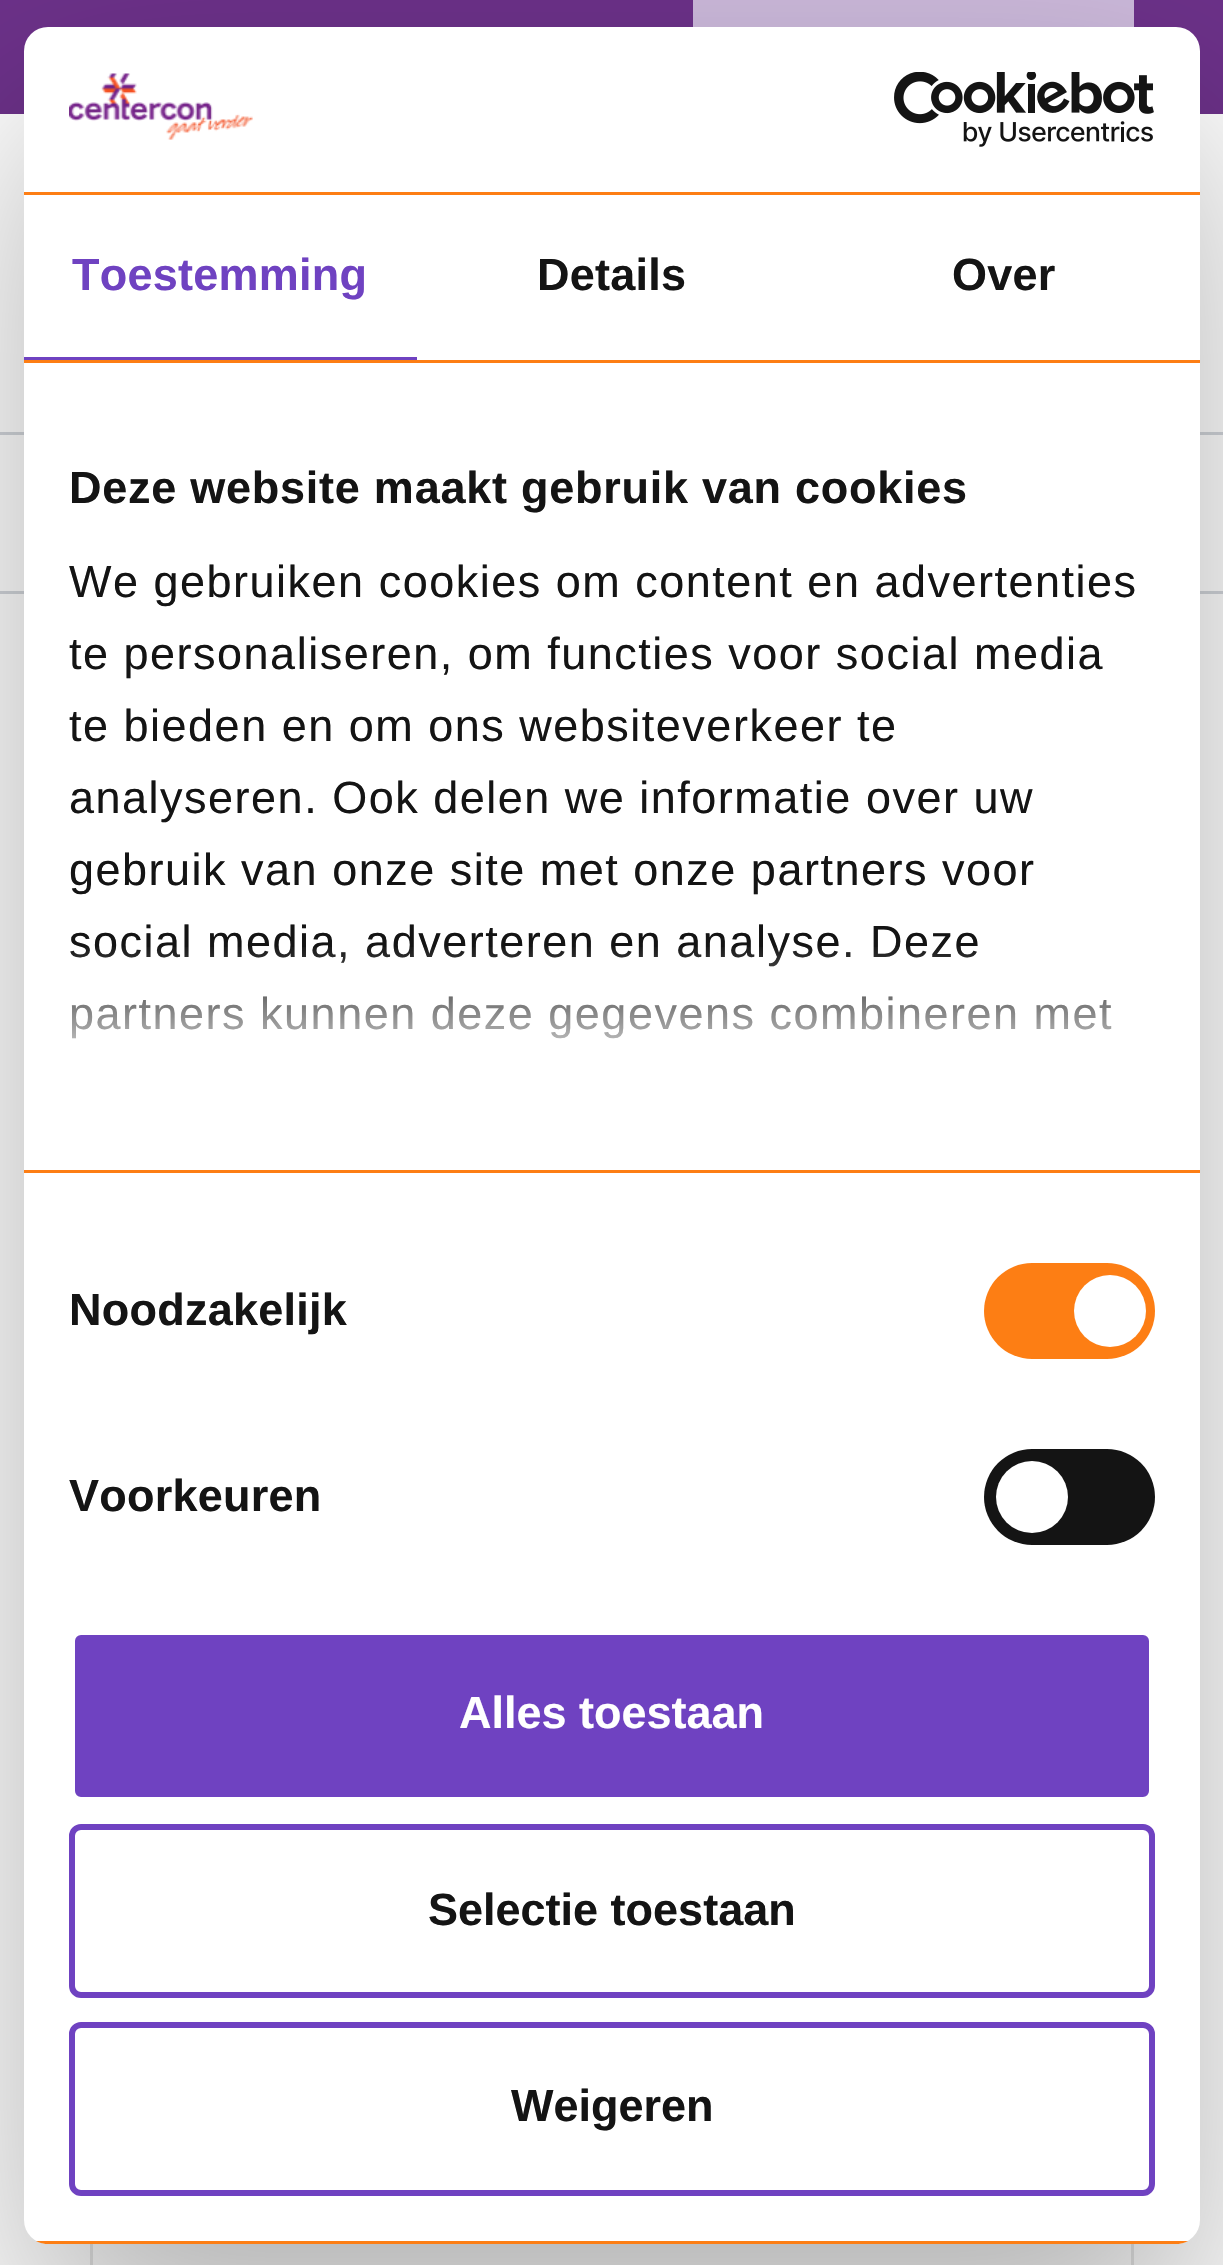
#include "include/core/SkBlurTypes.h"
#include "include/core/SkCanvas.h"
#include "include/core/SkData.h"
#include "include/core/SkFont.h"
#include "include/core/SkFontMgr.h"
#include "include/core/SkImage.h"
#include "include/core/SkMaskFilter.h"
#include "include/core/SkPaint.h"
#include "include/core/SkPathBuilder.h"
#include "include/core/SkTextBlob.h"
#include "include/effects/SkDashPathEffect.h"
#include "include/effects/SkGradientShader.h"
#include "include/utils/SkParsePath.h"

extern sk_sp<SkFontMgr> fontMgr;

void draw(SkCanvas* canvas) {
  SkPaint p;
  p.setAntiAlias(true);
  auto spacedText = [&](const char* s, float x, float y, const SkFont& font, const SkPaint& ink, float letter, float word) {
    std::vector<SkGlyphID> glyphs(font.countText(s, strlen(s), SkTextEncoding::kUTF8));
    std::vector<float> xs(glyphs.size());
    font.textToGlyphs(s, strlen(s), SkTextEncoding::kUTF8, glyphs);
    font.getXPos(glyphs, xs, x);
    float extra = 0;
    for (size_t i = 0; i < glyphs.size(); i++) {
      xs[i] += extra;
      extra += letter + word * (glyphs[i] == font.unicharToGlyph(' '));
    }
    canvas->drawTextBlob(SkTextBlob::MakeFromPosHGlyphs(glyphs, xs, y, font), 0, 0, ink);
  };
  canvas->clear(SK_ColorWHITE);
  p.setColor(SkColorSetRGB(108, 49, 137));
  canvas->drawRect(SkRect::MakeLTRB(0, 0, 1223, 114), p);
  p.setColor(SkColorSetRGB(204, 185, 219));
  canvas->drawRect(SkRect::MakeLTRB(693, 0, 1134, 27), p);
  p.setColor(SkColorSetRGB(210, 214, 219));
  canvas->drawRect(SkRect::MakeLTRB(0, 432, 1223, 435), p);
  canvas->drawRect(SkRect::MakeLTRB(0, 591, 1223, 594), p);
  p.setStyle(SkPaint::kStroke_Style);
  p.setStrokeWidth(3);
  p.setColor(SkColorSetRGB(230, 230, 230));
  canvas->drawRect(SkRect::MakeLTRB(91.5f, 1051.5f, 1132.5f, 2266.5f), p);
  p.setStyle(SkPaint::kFill_Style);
  p.setColor(SkColorSetARGB(77, 0, 0, 0));
  p.setMaskFilter(SkMaskFilter::MakeBlur(kNormal_SkBlurStyle, 102));
  canvas->drawRoundRect(SkRect::MakeLTRB(24, 123, 1200, 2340), 24, 24, p);
  p.setMaskFilter(nullptr);
  p.setColor(SK_ColorWHITE);
  canvas->drawRoundRect(SkRect::MakeLTRB(24, 27, 1200, 2244), 24, 24, p);
  p.setColor(SkColorSetRGB(253, 126, 20));
  canvas->drawRect(SkRect::MakeLTRB(24, 192, 1200, 195), p);
  canvas->drawImageRect(SkImages::DeferredFromEncodedData(SkData::MakeFromFileName("images/1.png")), SkRect::MakeLTRB(69, 73, 253, 140), SkSamplingOptions());
  canvas->drawImageRect(SkImages::DeferredFromEncodedData(SkData::MakeFromFileName("images/2.png")), SkRect::MakeLTRB(894, 72, 1154, 147), SkSamplingOptions());
  canvas->drawRect(SkRect::MakeLTRB(24, 360, 1200, 363), p);
  p.setColor(SkColorSetRGB(111, 66, 193));
  canvas->drawRect(SkRect::MakeLTRB(24, 357, 417, 360), p);
  p.setColor(SkColorSetRGB(253, 126, 20));
  canvas->drawRect(SkRect::MakeLTRB(24, 1170, 1200, 1173), p);
  canvas->drawRoundRect(SkRect::MakeLTRB(984, 1263, 1155, 1359), 48, 48, p);
  p.setColor(SK_ColorWHITE);
  canvas->drawCircle(1110, 1311, 36, p);
  p.setColor(SkColorSetRGB(20, 20, 20));
  canvas->drawRoundRect(SkRect::MakeLTRB(984, 1449, 1155, 1545), 48, 48, p);
  p.setColor(SK_ColorWHITE);
  canvas->drawCircle(1032, 1497, 36, p);
  canvas->save();
  canvas->clipPath(SkPathBuilder().moveTo(48, 27).lineTo(1176, 27).cubicTo(1189.5f, 27, 1200, 37.5f, 1200, 51).lineTo(1200, 2220).cubicTo(1200, 2233.5f, 1189.5f, 2244, 1176, 2244).lineTo(48, 2244).cubicTo(34.5f, 2244, 24, 2233.5f, 24, 2220).lineTo(24, 51).cubicTo(24, 37.5f, 34.5f, 27, 48, 27).close().detach(), true);
  p.setColor(SkColorSetRGB(253, 126, 20));
  canvas->drawRect(SkRect::MakeLTRB(36, 2241, 1188, 2244), p);
  canvas->restore();
  p.setColor(SkColorSetRGB(111, 66, 193));
  canvas->drawRoundRect(SkRect::MakeLTRB(72, 1632, 1152, 1800), 9, 9, p);
  p.setStyle(SkPaint::kStroke_Style);
  p.setStrokeWidth(6);
  p.setColor(SK_ColorWHITE);
  canvas->drawRoundRect(SkRect::MakeLTRB(72, 1632, 1152, 1800), 9, 9, p);
  p.setColor(SkColorSetRGB(111, 66, 193));
  canvas->drawRoundRect(SkRect::MakeLTRB(72, 1827, 1152, 1995), 9, 9, p);
  canvas->drawRoundRect(SkRect::MakeLTRB(72, 2025, 1152, 2193), 9, 9, p);
  SkFont font1(fontMgr->matchFamilyStyle("Liberation Sans", SkFontStyle::Bold()), 45);
  font1.setSubpixel(true);
  p.setStyle(SkPaint::kFill_Style);
  spacedText("Toestemming", 72, 290, font1, p, 0.25f, 0);
  p.setColor(SkColorSetRGB(20, 20, 20));
  spacedText("Details", 537, 290, font1, p, 0.25f, 0);
  spacedText("Over", 952, 290, font1, p, 0.25f, 0);
  spacedText("Deze website maakt gebruik van cookies", 69, 503, font1, p, 0.75f, 0);
  SkFont font2(fontMgr->matchFamilyStyle("Liberation Sans", SkFontStyle::Normal()), 45);
  font2.setSubpixel(true);
  spacedText("We gebruiken cookies om content en advertenties", 69, 597, font2, p, 1.5f, 0);
  spacedText("te personaliseren, om functies voor social media", 69, 669, font2, p, 1.5f, 0);
  spacedText("te bieden en om ons websiteverkeer te", 69, 741, font2, p, 1.5f, 0);
  spacedText("analyseren. Ook delen we informatie over uw", 69, 813, font2, p, 1.5f, 0);
  spacedText("gebruik van onze site met onze partners voor", 69, 885, font2, p, 1.5f, 0);
  spacedText("social media, adverteren en analyse. Deze", 69, 957, font2, p, 1.5f, 0);
  spacedText("partners kunnen deze gegevens combineren met", 69, 1029, font2, p, 1.5f, 0);
  {
    const SkColor colors[] = {SK_ColorWHITE, SkColorSetARGB(204, 255, 255, 255), SkColorSetARGB(0, 255, 255, 255)};
    const float stops[] = {0, 0.5f, 1};
    const SkPoint ends[] = {{593, 1169}, {593, 944}};
    p.setShader(SkGradientShader::MakeLinear(ends, colors, stops, 3, SkTileMode::kClamp));
    p.setAlpha(255);
  }
  canvas->drawRect(SkRect::MakeLTRB(70, 947, 1112, 1039), p);
  p.setShader(nullptr);
  p.setColor(SkColorSetRGB(20, 20, 20));
  spacedText("Noodzakelijk", 69, 1325, font1, p, 0.25f, 0);
  spacedText("Voorkeuren", 69, 1511, font1, p, 0.25f, 0);
  p.setColor(SK_ColorWHITE);
  canvas->drawString("Alles toestaan", 459, 1728, font1, p);
  p.setColor(SkColorSetRGB(20, 20, 20));
  canvas->drawString("Selectie toestaan", 428, 1925, font1, p);
  canvas->drawString("Weigeren", 511, 2121, font1, p);
}
